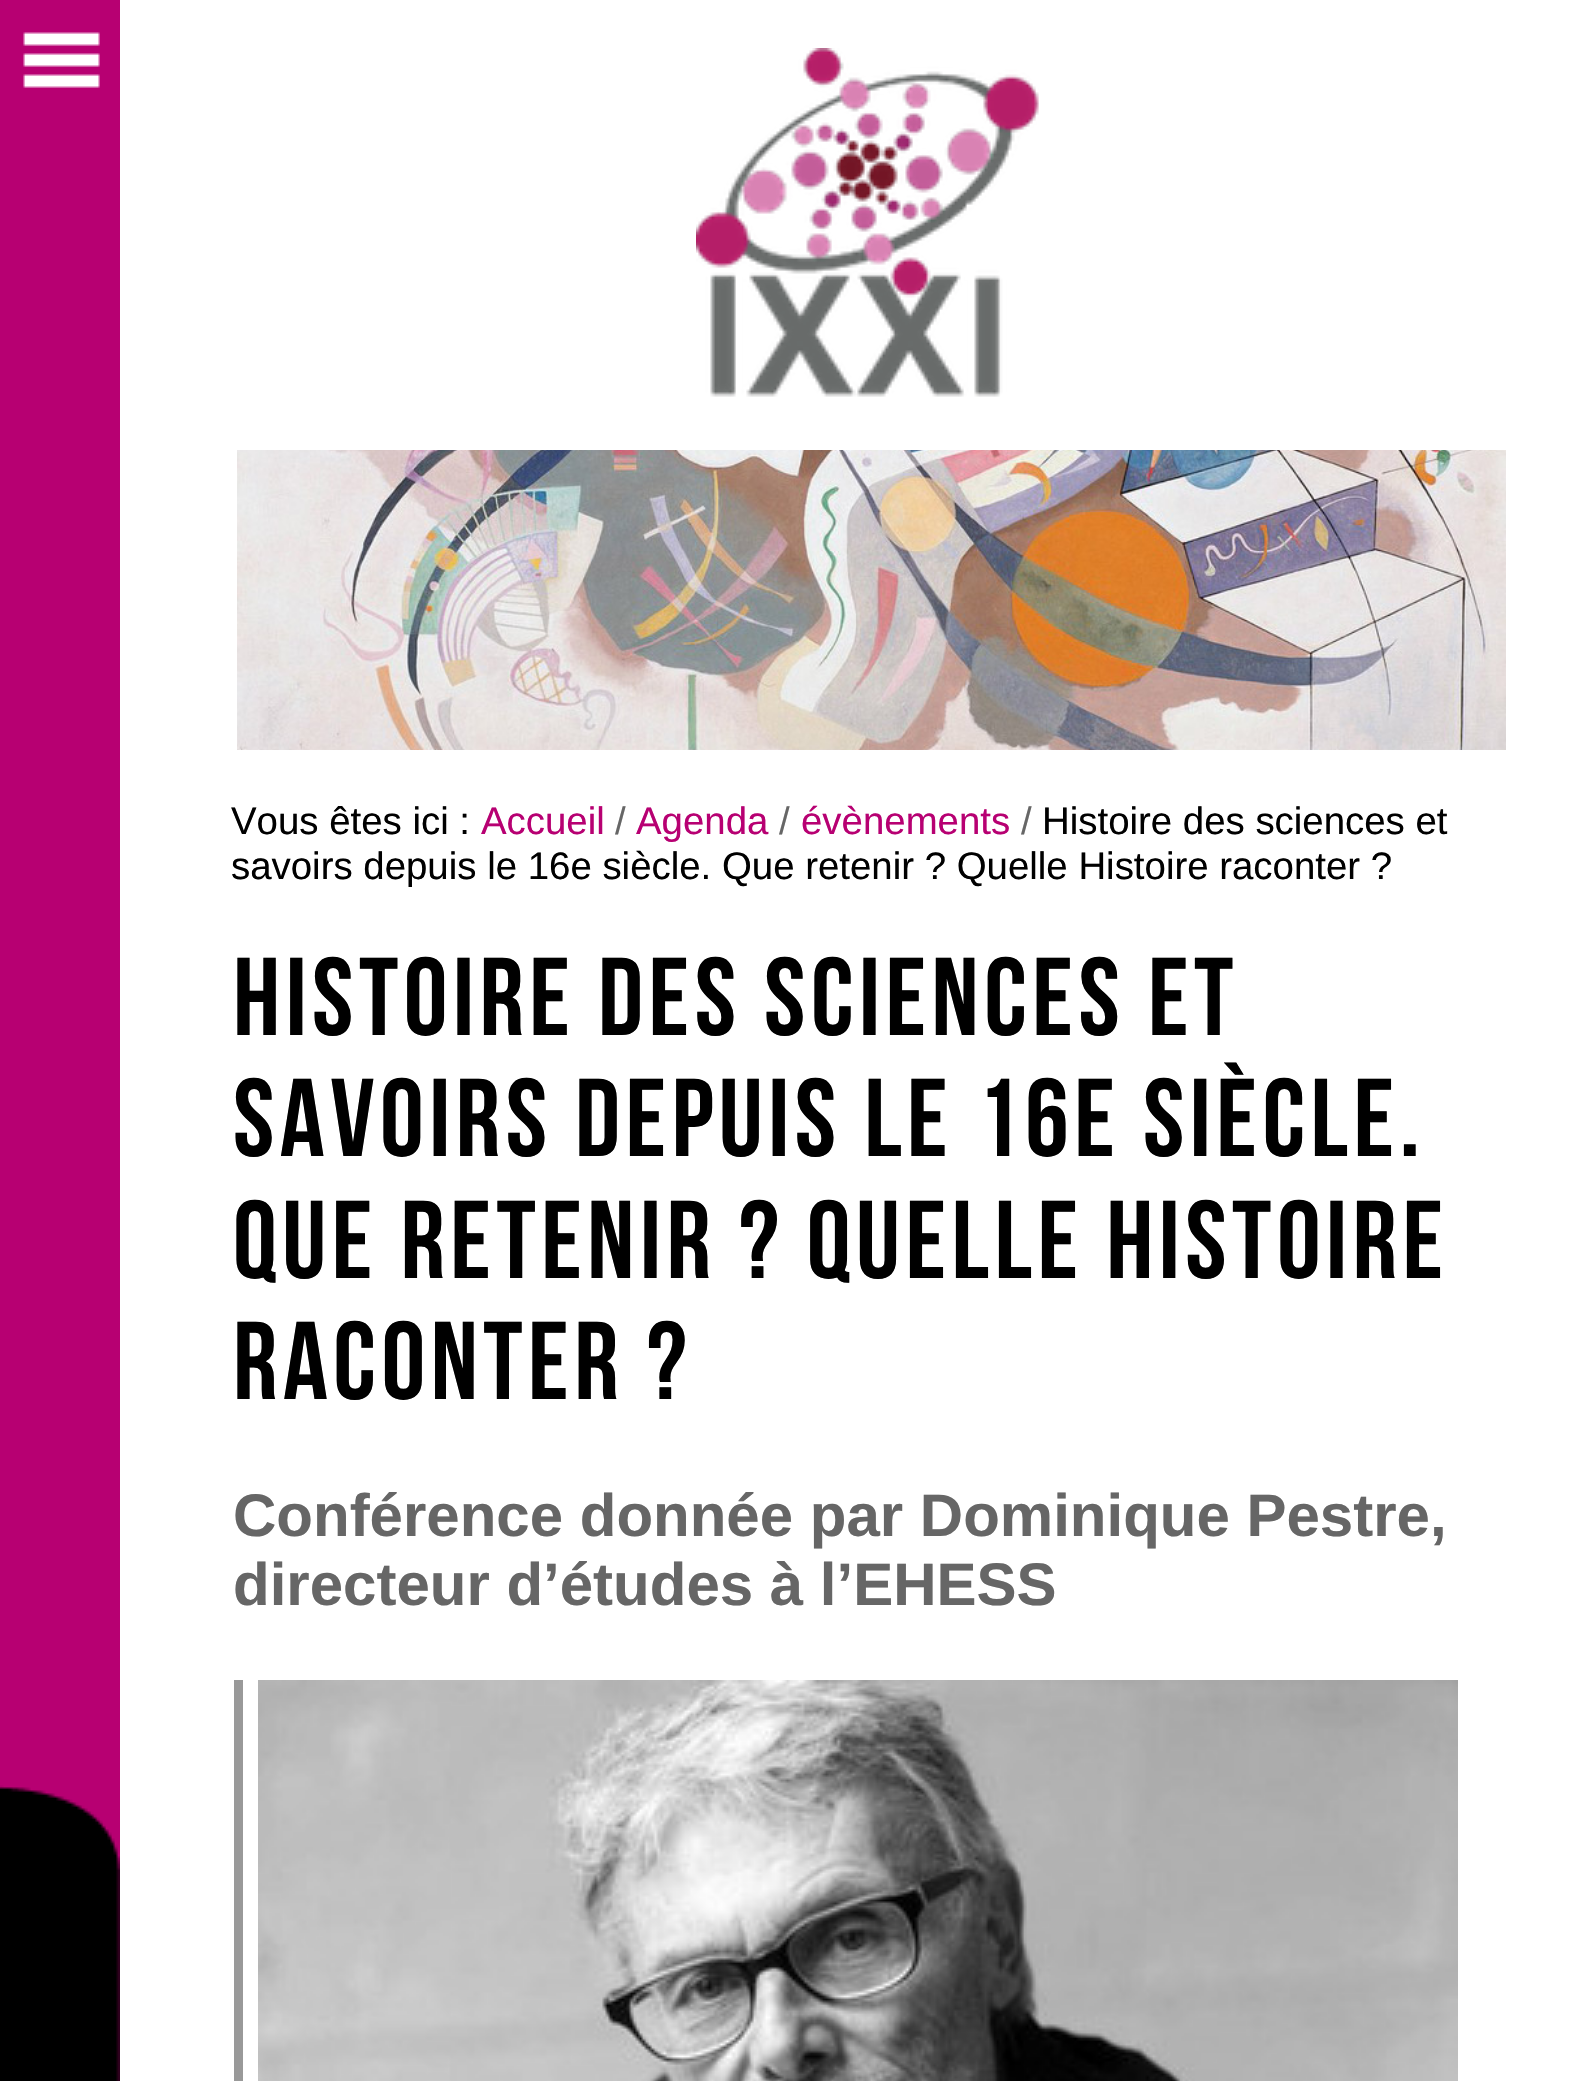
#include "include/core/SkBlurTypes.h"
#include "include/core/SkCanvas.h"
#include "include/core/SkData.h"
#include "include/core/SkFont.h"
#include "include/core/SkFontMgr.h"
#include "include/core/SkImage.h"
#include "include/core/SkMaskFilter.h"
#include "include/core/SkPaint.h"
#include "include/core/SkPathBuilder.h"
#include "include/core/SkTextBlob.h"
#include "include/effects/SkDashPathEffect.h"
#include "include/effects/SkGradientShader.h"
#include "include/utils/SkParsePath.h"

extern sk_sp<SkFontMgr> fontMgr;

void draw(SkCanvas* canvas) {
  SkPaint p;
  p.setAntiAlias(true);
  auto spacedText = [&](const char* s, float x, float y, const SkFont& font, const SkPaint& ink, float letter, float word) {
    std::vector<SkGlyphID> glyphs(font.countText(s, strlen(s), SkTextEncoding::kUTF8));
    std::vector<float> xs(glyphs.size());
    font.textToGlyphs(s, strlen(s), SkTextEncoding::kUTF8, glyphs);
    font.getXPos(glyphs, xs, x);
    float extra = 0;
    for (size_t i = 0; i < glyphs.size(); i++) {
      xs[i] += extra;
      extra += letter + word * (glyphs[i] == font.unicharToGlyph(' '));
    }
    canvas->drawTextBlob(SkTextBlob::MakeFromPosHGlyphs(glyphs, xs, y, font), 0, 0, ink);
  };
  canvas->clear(SK_ColorWHITE);
  p.setColor(SkColorSetRGB(183, 0, 114));
  canvas->drawRect(SkRect::MakeLTRB(0, 0, 120, 2081), p);
  canvas->drawImageRect(SkImages::DeferredFromEncodedData(SkData::MakeFromFileName("images/1.png")), SkRect::MakeLTRB(0, 1785, 120, 2081), SkSamplingOptions());
  canvas->drawImageRect(SkImages::DeferredFromEncodedData(SkData::MakeFromFileName("images/2.png")), SkRect::MakeLTRB(23, 32, 100, 88), SkSamplingOptions());
  canvas->drawImageRect(SkImages::DeferredFromEncodedData(SkData::MakeFromFileName("images/3.png")), SkRect::MakeLTRB(696, 48, 1039, 397), SkSamplingOptions());
  canvas->drawImageRect(SkImages::DeferredFromEncodedData(SkData::MakeFromFileName("images/4.png")), SkRect::MakeLTRB(237, 450, 1506, 750), SkSamplingOptions());
  p.setColor(SkColorSetRGB(153, 153, 153));
  canvas->drawRect(SkRect::MakeLTRB(234, 1680, 243, 2081), p);
  canvas->drawImageRect(SkImages::DeferredFromEncodedData(SkData::MakeFromFileName("images/5.png")), SkRect::MakeLTRB(258, 1680, 1458, 2081), SkSamplingOptions());
  SkFont font1(fontMgr->matchFamilyStyle("Liberation Sans", SkFontStyle::Normal()), 38.4f);
  font1.setSubpixel(true);
  p.setColor(SK_ColorBLACK);
  canvas->drawString("Vous êtes ici :", 231, 834, font1, p);
  p.setColor(SkColorSetRGB(183, 0, 114));
  canvas->drawString("Accueil", 481, 834, font1, p);
  p.setColor(SkColorSetRGB(102, 102, 102));
  canvas->drawString("/", 615, 834, font1, p);
  p.setColor(SkColorSetRGB(183, 0, 114));
  canvas->drawString("Agenda", 636, 834, font1, p);
  p.setColor(SkColorSetRGB(102, 102, 102));
  canvas->drawString("/", 779, 834, font1, p);
  p.setColor(SkColorSetRGB(183, 0, 114));
  canvas->drawString("évènements", 801, 834, font1, p);
  p.setColor(SkColorSetRGB(102, 102, 102));
  canvas->drawString("/", 1021, 834, font1, p);
  p.setColor(SK_ColorBLACK);
  canvas->drawString("Histoire des sciences et", 1042, 834, font1, p);
  canvas->drawString("savoirs depuis le 16e siècle. Que retenir ? Quelle Histoire raconter ?", 231, 879, font1, p);
  SkFont font2(fontMgr->matchFamilyStyle("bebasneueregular", SkFontStyle::Normal()), 110.4f);
  font2.setSubpixel(true);
  spacedText("Histoire des sciences et", 233, 1035, font2, p, 5.5f, 0);
  spacedText("savoirs depuis le 16e siècle.", 233, 1156, font2, p, 5.5f, 0);
  spacedText("Que retenir ? Quelle Histoire", 233, 1278, font2, p, 5.5f, 0);
  spacedText("raconter ?", 233, 1399, font2, p, 5.5f, 0);
  SkFont font3(fontMgr->matchFamilyStyle("Liberation Sans", SkFontStyle::Bold()), 60);
  font3.setSubpixel(true);
  p.setColor(SkColorSetRGB(102, 102, 102));
  canvas->drawString("Conférence donnée par Dominique Pestre,", 233, 1536, font3, p);
  canvas->drawString("directeur d’études à l’EHESS", 233, 1605, font3, p);
}
